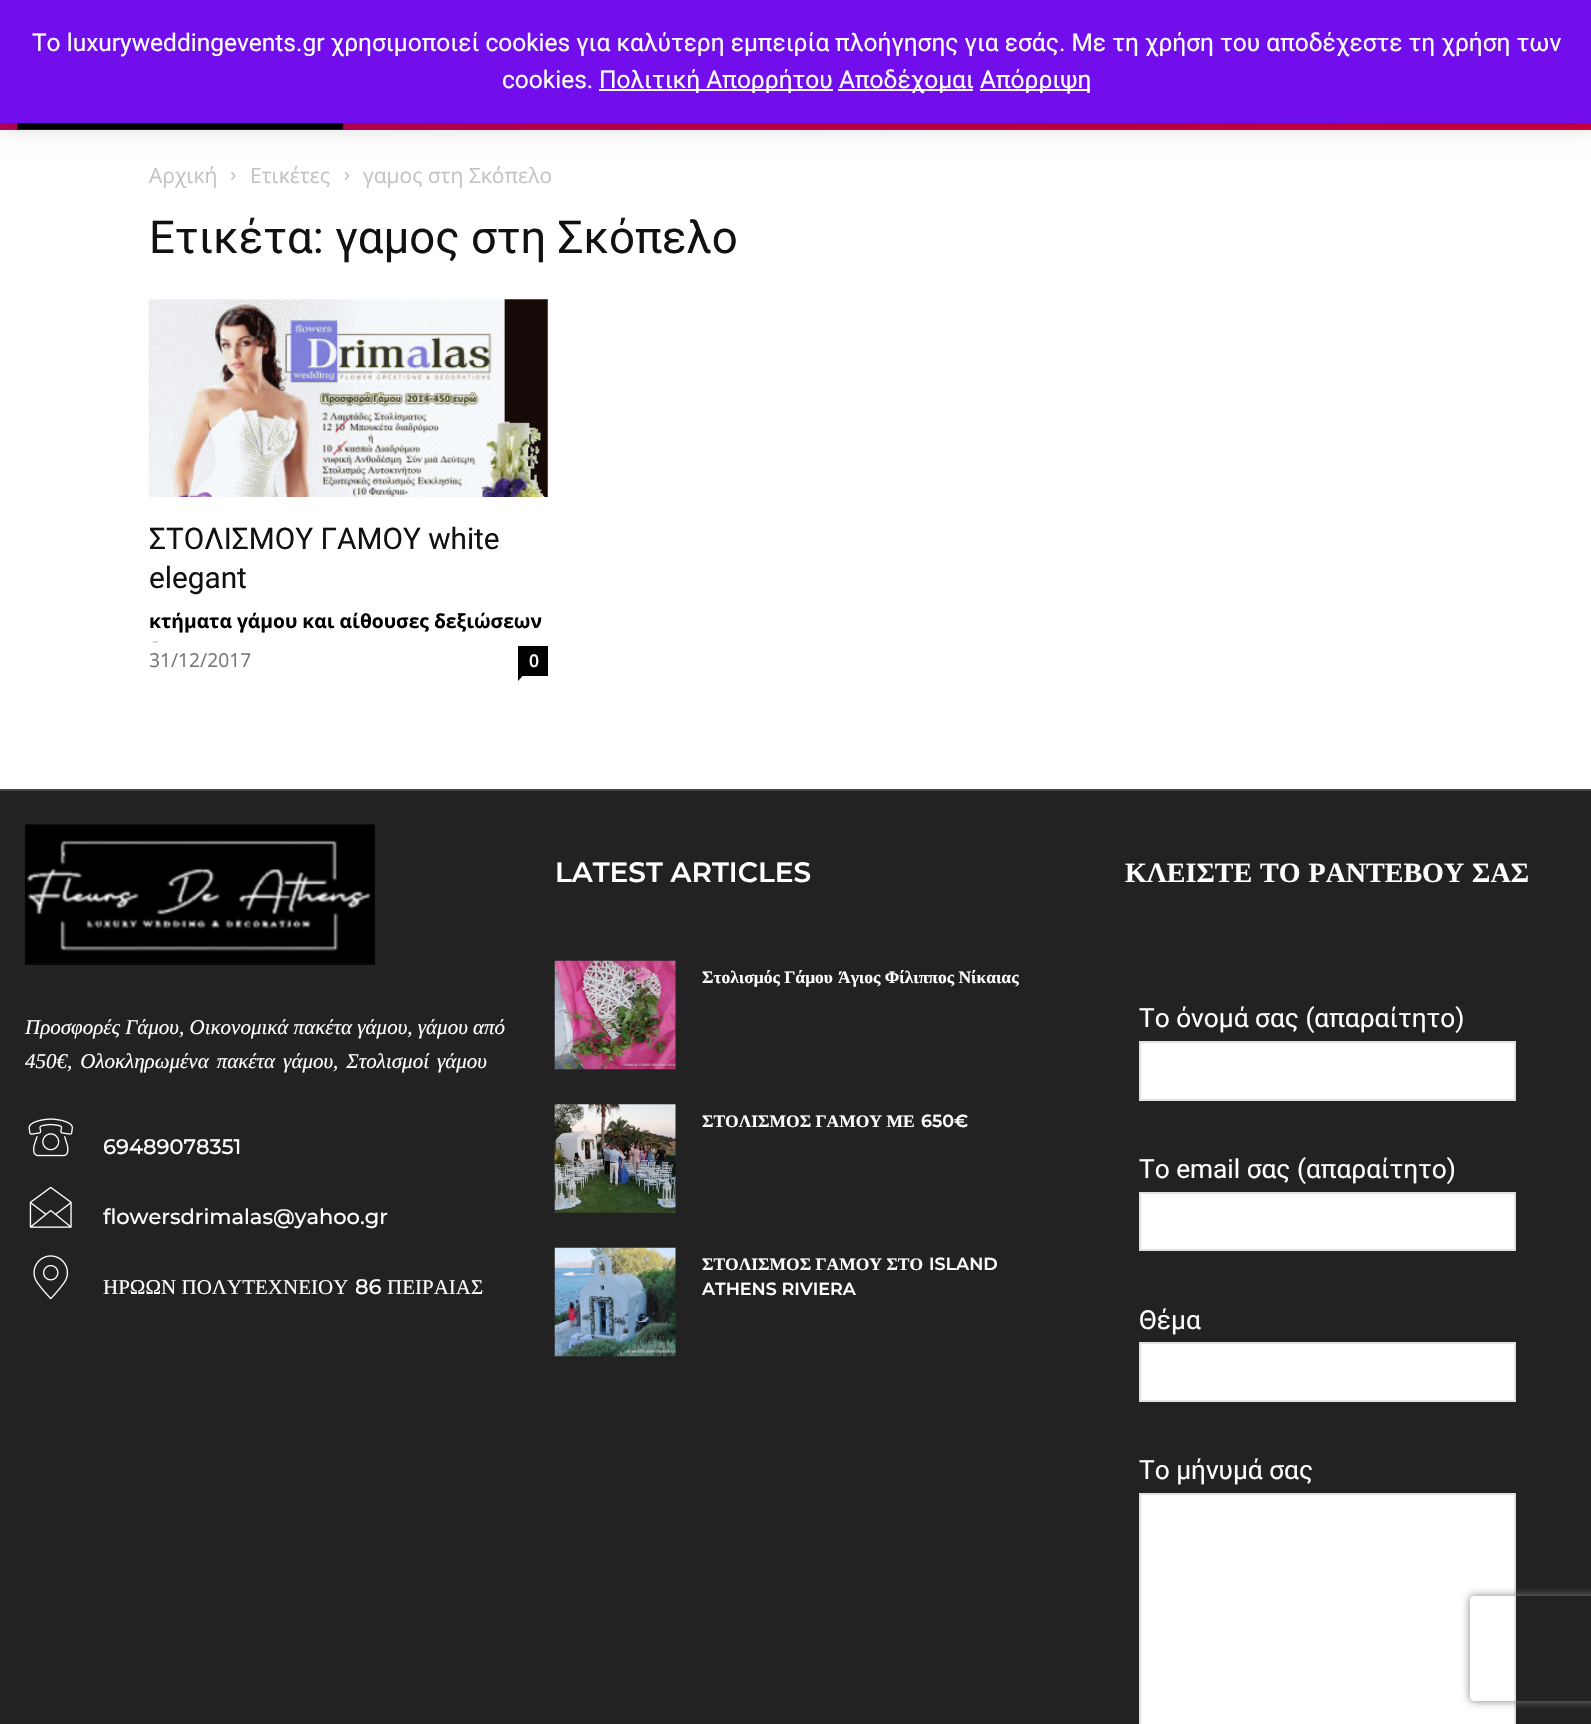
#include "include/core/SkBlurTypes.h"
#include "include/core/SkCanvas.h"
#include "include/core/SkData.h"
#include "include/core/SkFont.h"
#include "include/core/SkFontMgr.h"
#include "include/core/SkImage.h"
#include "include/core/SkMaskFilter.h"
#include "include/core/SkPaint.h"
#include "include/core/SkPathBuilder.h"
#include "include/core/SkTextBlob.h"
#include "include/effects/SkDashPathEffect.h"
#include "include/effects/SkGradientShader.h"
#include "include/utils/SkParsePath.h"

extern sk_sp<SkFontMgr> fontMgr;

void draw(SkCanvas* canvas) {
  SkPaint p;
  p.setAntiAlias(true);
  auto spacedText = [&](const char* s, float x, float y, const SkFont& font, const SkPaint& ink, float letter, float word) {
    std::vector<SkGlyphID> glyphs(font.countText(s, strlen(s), SkTextEncoding::kUTF8));
    std::vector<float> xs(glyphs.size());
    font.textToGlyphs(s, strlen(s), SkTextEncoding::kUTF8, glyphs);
    font.getXPos(glyphs, xs, x);
    float extra = 0;
    for (size_t i = 0; i < glyphs.size(); i++) {
      xs[i] += extra;
      extra += letter + word * (glyphs[i] == font.unicharToGlyph(' '));
    }
    canvas->drawTextBlob(SkTextBlob::MakeFromPosHGlyphs(glyphs, xs, y, font), 0, 0, ink);
  };
  canvas->clear(SK_ColorWHITE);
  {
    const SkColor colors[] = {SkColorSetRGB(185, 3, 91), SkColorSetRGB(211, 0, 63)};
    const float stops[] = {0, 1};
    const SkPoint ends[] = {{0, 65}, {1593, 65}};
    p.setShader(SkGradientShader::MakeLinear(ends, colors, stops, 2, SkTileMode::kClamp));
    p.setAlpha(255);
  }
  canvas->drawRect(SkRect::MakeLTRB(0, 123, 1591, 130), p);
  canvas->drawImageRect(SkImages::DeferredFromEncodedData(SkData::MakeFromFileName("images/1.png")), SkRect::MakeLTRB(17, 123, 344, 130), SkSamplingOptions());
  p.setShader(nullptr);
  p.setColor(SkColorSetARGB(51, 0, 0, 0));
  p.setMaskFilter(SkMaskFilter::MakeBlur(kNormal_SkBlurStyle, 12));
  canvas->drawRect(SkRect::MakeLTRB(0, 2, 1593, 124), p);
  p.setMaskFilter(nullptr);
  p.setColor(SkColorSetRGB(114, 14, 236));
  canvas->drawRect(SkRect::MakeLTRB(0, 0, 1591, 123), p);
  p.setColor(SkColorSetRGB(252, 251, 254));
  canvas->drawRect(SkRect::MakeLTRB(599, 89, 833, 91), p);
  canvas->drawRect(SkRect::MakeLTRB(838, 89, 973, 91), p);
  canvas->drawRect(SkRect::MakeLTRB(980, 89, 1090, 91), p);
  canvas->drawImageRect(SkImages::DeferredFromEncodedData(SkData::MakeFromFileName("images/2.png")), SkRect::MakeLTRB(231, 172, 236, 180), SkSamplingOptions());
  canvas->drawImageRect(SkImages::DeferredFromEncodedData(SkData::MakeFromFileName("images/3.png")), SkRect::MakeLTRB(344, 172, 350, 180), SkSamplingOptions());
  canvas->drawImageRect(SkImages::DeferredFromEncodedData(SkData::MakeFromFileName("images/4.png")), SkRect::MakeLTRB(148, 299, 548, 497), SkSamplingOptions());
  p.setColor(SK_ColorBLACK);
  canvas->drawRect(SkRect::MakeLTRB(518, 646, 548, 676), p);
  canvas->drawPath(SkPathBuilder().moveTo(518, 675.5f).lineTo(523, 675.5f).lineTo(518, 681).close().detach(), p);
  p.setColor(SkColorSetRGB(34, 34, 34));
  canvas->drawRect(SkRect::MakeLTRB(0, 791, 1591, 1724), p);
  p.setColor(SkColorSetRGB(68, 68, 68));
  canvas->drawRect(SkRect::MakeLTRB(0, 789, 1591, 791), p);
  canvas->drawImageRect(SkImages::DeferredFromEncodedData(SkData::MakeFromFileName("images/5.png")), SkRect::MakeLTRB(25, 824, 375, 965), SkSamplingOptions());
  canvas->drawImageRect(SkImages::DeferredFromEncodedData(SkData::MakeFromFileName("images/6.png")), SkRect::MakeLTRB(28, 1118, 73, 1157), SkSamplingOptions());
  canvas->drawImageRect(SkImages::DeferredFromEncodedData(SkData::MakeFromFileName("images/7.png")), SkRect::MakeLTRB(29, 1186, 72, 1228), SkSamplingOptions());
  canvas->drawImageRect(SkImages::DeferredFromEncodedData(SkData::MakeFromFileName("images/8.png")), SkRect::MakeLTRB(33, 1255, 69, 1300), SkSamplingOptions());
  canvas->drawImageRect(SkImages::DeferredFromEncodedData(SkData::MakeFromFileName("images/9.png")), SkRect::MakeLTRB(554, 960, 676, 1070), SkSamplingOptions());
  canvas->drawImageRect(SkImages::DeferredFromEncodedData(SkData::MakeFromFileName("images/10.png")), SkRect::MakeLTRB(554, 1104, 676, 1213), SkSamplingOptions());
  canvas->drawImageRect(SkImages::DeferredFromEncodedData(SkData::MakeFromFileName("images/11.png")), SkRect::MakeLTRB(554, 1247, 676, 1357), SkSamplingOptions());
  p.setColor(SK_ColorWHITE);
  canvas->drawRect(SkRect::MakeLTRB(1140, 1042, 1515, 1100), p);
  p.setStyle(SkPaint::kStroke_Style);
  p.setStrokeWidth(2);
  p.setColor(SkColorSetRGB(225, 225, 225));
  canvas->drawRect(SkRect::MakeLTRB(1140, 1042, 1515, 1100), p);
  p.setStyle(SkPaint::kFill_Style);
  p.setColor(SK_ColorWHITE);
  canvas->drawRect(SkRect::MakeLTRB(1140, 1193, 1515, 1250), p);
  p.setStyle(SkPaint::kStroke_Style);
  p.setColor(SkColorSetRGB(225, 225, 225));
  canvas->drawRect(SkRect::MakeLTRB(1140, 1193, 1515, 1250), p);
  p.setStyle(SkPaint::kFill_Style);
  p.setColor(SK_ColorWHITE);
  canvas->drawRect(SkRect::MakeLTRB(1140, 1343, 1515, 1401), p);
  p.setStyle(SkPaint::kStroke_Style);
  p.setColor(SkColorSetRGB(225, 225, 225));
  canvas->drawRect(SkRect::MakeLTRB(1140, 1343, 1515, 1401), p);
  p.setStyle(SkPaint::kFill_Style);
  p.setColor(SK_ColorWHITE);
  canvas->drawRect(SkRect::MakeLTRB(1140, 1494, 1515, 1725), p);
  p.setStyle(SkPaint::kStroke_Style);
  p.setColor(SkColorSetRGB(225, 225, 225));
  canvas->drawRect(SkRect::MakeLTRB(1140, 1494, 1515, 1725), p);
  canvas->save();
  canvas->clipPath(SkPathBuilder(SkPathFillType::kEvenOdd).moveTo(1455, 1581).lineTo(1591, 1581).lineTo(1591, 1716).lineTo(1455, 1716).close().moveTo(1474, 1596).lineTo(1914, 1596).cubicTo(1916, 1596, 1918, 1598, 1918, 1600).lineTo(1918, 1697).cubicTo(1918, 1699, 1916, 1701, 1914, 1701).lineTo(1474, 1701).cubicTo(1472, 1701, 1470, 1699, 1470, 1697).lineTo(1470, 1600).cubicTo(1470, 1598, 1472, 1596, 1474, 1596).close().detach(), true);
  p.setStyle(SkPaint::kFill_Style);
  p.setColor(SkColorSetRGB(128, 128, 128));
  p.setMaskFilter(SkMaskFilter::MakeBlur(kNormal_SkBlurStyle, 4.5f));
  canvas->drawRoundRect(SkRect::MakeLTRB(1470, 1596, 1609, 1701), 4, 4, p);
  p.setMaskFilter(nullptr);
  canvas->restore();
  SkFont font1(fontMgr->matchFamilyStyle("Roboto", SkFontStyle::Normal()), 24.5f);
  font1.setSubpixel(true);
  p.setColor(SK_ColorWHITE);
  canvas->drawString("Το luxuryweddingevents.gr χρησιμοποιεί cookies για καλύτερη εμπειρία πλοήγησης για εσάς. Με τη χρήση του αποδέχεστε τη χρήση των", 32, 51, font1, p);
  canvas->drawString("cookies.", 502, 88, font1, p);
  canvas->drawString("Πολιτική Απορρήτου", 599, 88, font1, p);
  canvas->drawString("Αποδέχομαι", 839, 88, font1, p);
  canvas->drawString("Απόρριψη", 980, 88, font1, p);
  SkFont font2(fontMgr->matchFamilyStyle("Open Sans", SkFontStyle::Normal()), 21);
  font2.setSubpixel(true);
  p.setColor(SkColorSetRGB(195, 195, 195));
  canvas->drawString("Αρχική", 149, 183, font2, p);
  canvas->drawString("Ετικέτες", 250, 183, font2, p);
  canvas->drawString("γαμος στη Σκόπελο", 363, 183, font2, p);
  SkFont font3(fontMgr->matchFamilyStyle("Roboto", SkFontStyle::Normal()), 45.5f);
  font3.setSubpixel(true);
  p.setColor(SkColorSetRGB(17, 17, 17));
  canvas->drawString("Ετικέτα: γαμος στη Σκόπελο", 149, 253, font3, p);
  SkFont font4(fontMgr->matchFamilyStyle("Roboto", SkFontStyle::Normal()), 29.75f);
  font4.setSubpixel(true);
  canvas->drawString("ΣΤΟΛΙΣΜΟΥ ΓΑΜΟΥ white", 149, 549, font4, p);
  canvas->drawString("elegant", 149, 588, font4, p);
  SkFont font5(fontMgr->matchFamilyStyle("Open Sans", SkFontStyle::Bold()), 19.25f);
  font5.setSubpixel(true);
  p.setColor(SK_ColorBLACK);
  canvas->drawString("κτήματα γάμου και αίθουσες δεξιώσεων", 149, 628, font5, p);
  SkFont font6(fontMgr->matchFamilyStyle("Open Sans", SkFontStyle::Normal()), 19.25f);
  font6.setSubpixel(true);
  p.setColor(SkColorSetRGB(204, 204, 204));
  canvas->drawString("-", 152, 647, font6, p);
  p.setColor(SkColorSetRGB(118, 118, 118));
  canvas->drawString("31/12/2017", 149, 667, font6, p);
  SkFont font7(fontMgr->matchFamilyStyle("Open Sans", SkFontStyle(600, SkFontStyle::kNormal_Width, SkFontStyle::kUpright_Slant)), 17.5f);
  font7.setSubpixel(true);
  p.setColor(SK_ColorWHITE);
  canvas->drawString("0", 529, 667, font7, p);
  SkFont font8(fontMgr->matchFamilyStyle("Liberation Serif", SkFontStyle::Italic()), 21);
  font8.setSubpixel(true);
  canvas->drawString("Προσφορές Γάμου, Οικονομικά πακέτα γάμου, γάμου από", 25, 1034, font8, p);
  spacedText("450€, Ολοκληρωμένα πακέτα γάμου, Στολισμοί γάμου", 25, 1068, font8, p, 0, 2.75f);
  SkFont font9(fontMgr->matchFamilyStyle("Montserrat", SkFontStyle(500, SkFontStyle::kNormal_Width, SkFontStyle::kUpright_Slant)), 21);
  font9.setSubpixel(true);
  canvas->drawString("69489078351", 103, 1154, font9, p);
  canvas->drawString("flowersdrimalas@yahoo.gr", 103, 1224, font9, p);
  SkFont font10(fontMgr->matchFamilyStyle("Liberation Serif", SkFontStyle::Normal()), 21);
  font10.setSubpixel(true);
  canvas->drawString("ΗΡΩΩΝ ΠΟΛΥΤΕΧΝΕΙΟΥ", 103, 1294, font10, p);
  canvas->drawString("86", 355, 1294, font9, p);
  canvas->drawString("ΠΕΙΡΑΙΑΣ", 387, 1294, font10, p);
  SkFont font11(fontMgr->matchFamilyStyle("Montserrat", SkFontStyle(600, SkFontStyle::kNormal_Width, SkFontStyle::kUpright_Slant)), 28);
  font11.setSubpixel(true);
  canvas->drawString("LATEST ARTICLES", 555, 882, font11, p);
  SkFont font12(fontMgr->matchFamilyStyle("Liberation Serif", SkFontStyle::Bold()), 17.5f);
  font12.setSubpixel(true);
  canvas->drawString("Στολισμός Γάμου", 702, 983, font12, p);
  canvas->drawString("Άγιος Φίλιππος Νίκαιας", 838, 983, font12, p);
  canvas->drawString("ΣΤΟΛΙΣΜΟΣ ΓΑΜΟΥ ΜΕ", 702, 1127, font12, p);
  SkFont font13(fontMgr->matchFamilyStyle("Montserrat", SkFontStyle(600, SkFontStyle::kNormal_Width, SkFontStyle::kUpright_Slant)), 17.5f);
  font13.setSubpixel(true);
  canvas->drawString("650€", 921, 1127, font13, p);
  canvas->drawString("ΣΤΟΛΙΣΜΟΣ ΓΑΜΟΥ ΣΤΟ", 702, 1270, font12, p);
  canvas->drawString("ISLAND", 929, 1270, font13, p);
  canvas->drawString("ATHENS RIVIERA", 702, 1295, font13, p);
  SkFont font14(fontMgr->matchFamilyStyle("Liberation Serif", SkFontStyle::Bold()), 28);
  font14.setSubpixel(true);
  spacedText("ΚΛΕΙΣΤΕ ΤΟ ΡΑΝΤΕΒΟΥ ΣΑΣ", 1125, 882, font14, p, 0, 1);
  SkFont font15(fontMgr->matchFamilyStyle("Roboto", SkFontStyle::Normal()), 26.25f);
  font15.setSubpixel(true);
  canvas->drawString("Το όνομά σας (απαραίτητο)", 1139, 1027, font15, p);
  canvas->drawString("Το email σας (απαραίτητο)", 1139, 1178, font15, p);
  canvas->drawString("Θέμα", 1139, 1329, font15, p);
  canvas->drawString("Το μήνυμά σας", 1139, 1479, font15, p);
}
